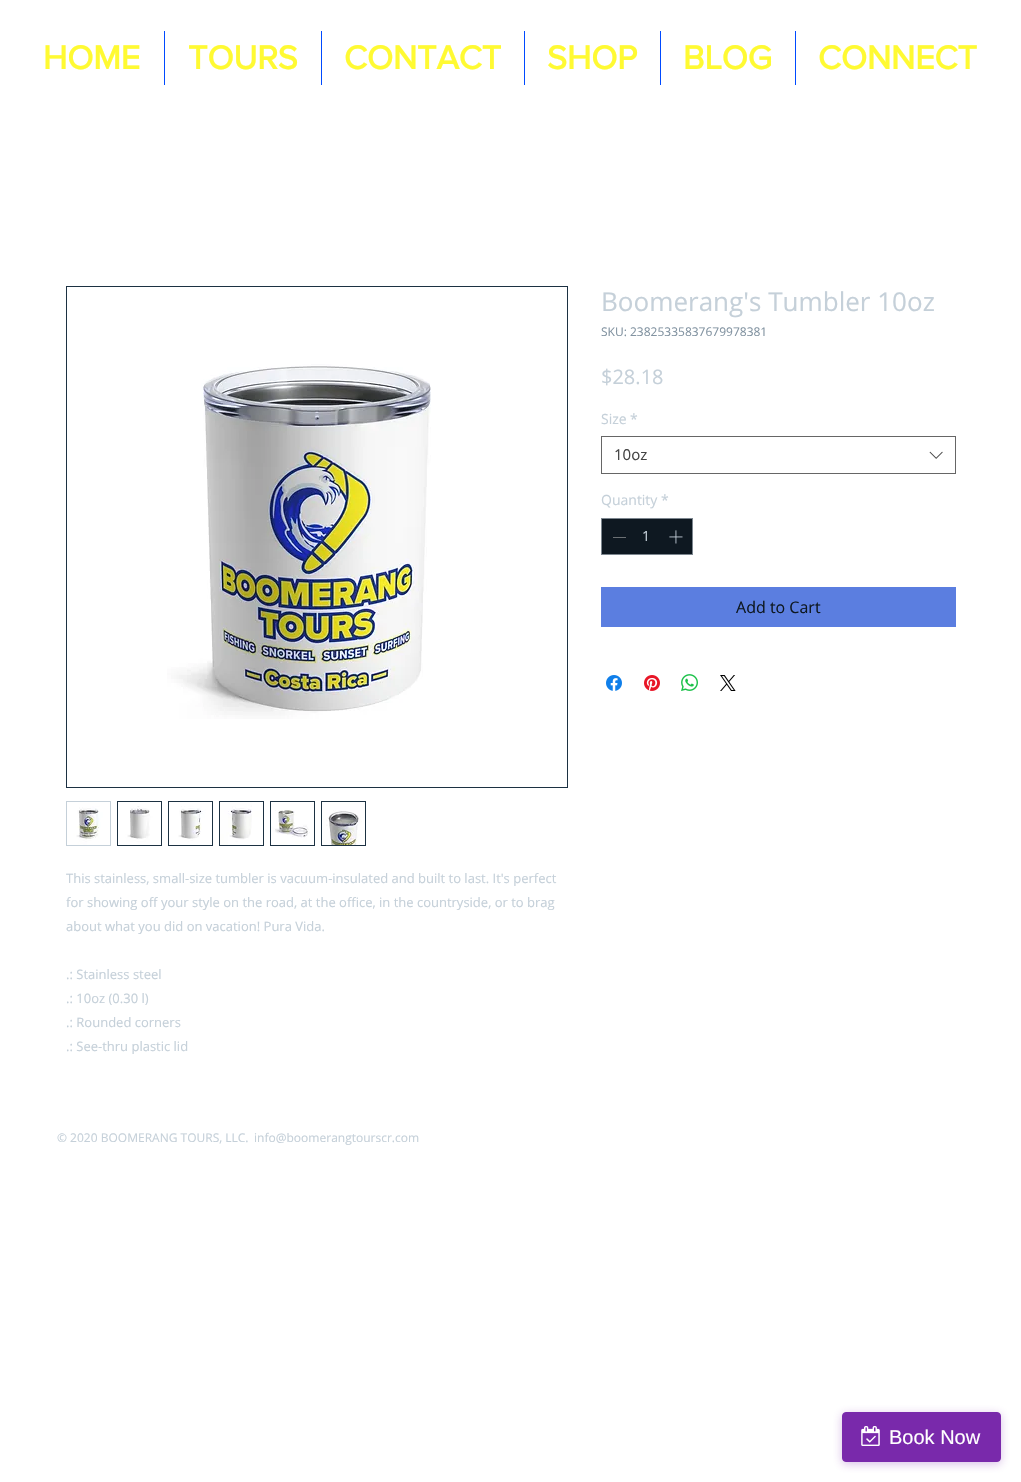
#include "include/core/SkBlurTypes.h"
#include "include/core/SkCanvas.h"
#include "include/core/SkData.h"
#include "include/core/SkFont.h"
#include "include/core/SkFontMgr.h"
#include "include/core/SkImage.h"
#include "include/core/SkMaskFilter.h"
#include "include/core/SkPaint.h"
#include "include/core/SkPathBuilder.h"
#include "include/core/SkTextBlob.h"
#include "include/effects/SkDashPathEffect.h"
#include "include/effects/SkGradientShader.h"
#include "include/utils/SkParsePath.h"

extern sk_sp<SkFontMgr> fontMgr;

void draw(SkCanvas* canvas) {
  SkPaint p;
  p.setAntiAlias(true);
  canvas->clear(SK_ColorWHITE);
  p.setColor(SkColorSetRGB(0, 74, 255));
  canvas->drawRect(SkRect::MakeLTRB(164, 31, 165, 85), p);
  canvas->drawRect(SkRect::MakeLTRB(321, 31, 322, 85), p);
  canvas->drawRect(SkRect::MakeLTRB(524, 31, 525, 85), p);
  canvas->drawRect(SkRect::MakeLTRB(660, 31, 661, 85), p);
  canvas->drawRect(SkRect::MakeLTRB(795, 31, 796, 85), p);
  p.setStyle(SkPaint::kStroke_Style);
  p.setStrokeWidth(1);
  p.setColor(SkColorSetRGB(102, 102, 102));
  canvas->drawRect(SkRect::MakeLTRB(601.5f, 436.5f, 955.5f, 473.5f), p);
  canvas->drawImageRect(SkImages::DeferredFromEncodedData(SkData::MakeFromFileName("images/1.png")), SkRect::MakeLTRB(929, 451, 943, 459), SkSamplingOptions());
  p.setStyle(SkPaint::kFill_Style);
  p.setColor(SkColorSetRGB(14, 24, 33));
  canvas->drawRect(SkRect::MakeLTRB(601.5f, 518.5f, 692.5f, 554.5f), p);
  p.setStyle(SkPaint::kStroke_Style);
  p.setColor(SkColorSetRGB(124, 134, 143));
  canvas->drawRect(SkRect::MakeLTRB(601.5f, 518.5f, 692.5f, 554.5f), p);
  p.setStyle(SkPaint::kFill_Style);
  p.setColor(SkColorSetRGB(107, 112, 116));
  canvas->drawRect(SkRect::MakeLTRB(613, 537, 626, 538), p);
  canvas->drawImageRect(SkImages::DeferredFromEncodedData(SkData::MakeFromFileName("images/2.png")), SkRect::MakeLTRB(669, 530, 683, 544), SkSamplingOptions());
  p.setColor(SkColorSetRGB(91, 126, 224));
  canvas->drawRect(SkRect::MakeLTRB(601, 587, 956, 627), p);
  canvas->drawImageRect(SkImages::DeferredFromEncodedData(SkData::MakeFromFileName("images/3.png")), SkRect::MakeLTRB(606, 675, 622, 691), SkSamplingOptions());
  canvas->drawImageRect(SkImages::DeferredFromEncodedData(SkData::MakeFromFileName("images/4.png")), SkRect::MakeLTRB(644, 675, 660, 691), SkSamplingOptions());
  canvas->drawImageRect(SkImages::DeferredFromEncodedData(SkData::MakeFromFileName("images/5.png")), SkRect::MakeLTRB(681, 674, 698, 691), SkSamplingOptions());
  canvas->drawImageRect(SkImages::DeferredFromEncodedData(SkData::MakeFromFileName("images/6.png")), SkRect::MakeLTRB(720, 675, 736, 691), SkSamplingOptions());
  p.setStyle(SkPaint::kStroke_Style);
  p.setColor(SkColorSetRGB(28, 49, 66));
  canvas->drawRect(SkRect::MakeLTRB(66.5f, 286.5f, 567.5f, 787.5f), p);
  canvas->drawImageRect(SkImages::DeferredFromEncodedData(SkData::MakeFromFileName("images/7.png")), SkRect::MakeLTRB(167, 364, 431, 719), SkSamplingOptions());
  p.setColor(SkColorSetRGB(197, 208, 217));
  canvas->drawRect(SkRect::MakeLTRB(66.5f, 801.5f, 110.5f, 845.5f), p);
  canvas->drawImageRect(SkImages::DeferredFromEncodedData(SkData::MakeFromFileName("images/8.png")), SkRect::MakeLTRB(67, 802, 110, 845), SkSamplingOptions());
  p.setStyle(SkPaint::kFill_Style);
  p.setColor(SkColorSetRGB(28, 49, 66));
  canvas->drawRect(SkRect::MakeLTRB(117, 801, 162, 846), p);
  canvas->drawImageRect(SkImages::DeferredFromEncodedData(SkData::MakeFromFileName("images/9.png")), SkRect::MakeLTRB(118, 802, 161, 845), SkSamplingOptions());
  canvas->drawRect(SkRect::MakeLTRB(168, 801, 213, 846), p);
  canvas->drawImageRect(SkImages::DeferredFromEncodedData(SkData::MakeFromFileName("images/10.png")), SkRect::MakeLTRB(169, 802, 212, 845), SkSamplingOptions());
  canvas->drawRect(SkRect::MakeLTRB(219, 801, 264, 846), p);
  canvas->drawImageRect(SkImages::DeferredFromEncodedData(SkData::MakeFromFileName("images/11.png")), SkRect::MakeLTRB(220, 802, 263, 845), SkSamplingOptions());
  canvas->drawRect(SkRect::MakeLTRB(270, 801, 315, 846), p);
  canvas->drawImageRect(SkImages::DeferredFromEncodedData(SkData::MakeFromFileName("images/12.png")), SkRect::MakeLTRB(271, 802, 314, 845), SkSamplingOptions());
  canvas->drawRect(SkRect::MakeLTRB(321, 801, 366, 846), p);
  canvas->drawImageRect(SkImages::DeferredFromEncodedData(SkData::MakeFromFileName("images/13.png")), SkRect::MakeLTRB(322, 802, 365, 845), SkSamplingOptions());
  p.setColor(SkColorSetARGB(77, 121, 41, 171));
  p.setMaskFilter(SkMaskFilter::MakeBlur(kNormal_SkBlurStyle, 5));
  canvas->drawRoundRect(SkRect::MakeLTRB(842, 1414, 1001, 1464), 4, 4, p);
  p.setMaskFilter(nullptr);
  p.setColor(SkColorSetRGB(121, 41, 171));
  canvas->drawRoundRect(SkRect::MakeLTRB(842.5f, 1412.5f, 1000.5f, 1461.5f), 3.5f, 3.5f, p);
  p.setStyle(SkPaint::kStroke_Style);
  canvas->drawRoundRect(SkRect::MakeLTRB(842.5f, 1412.5f, 1000.5f, 1461.5f), 3.5f, 3.5f, p);
  canvas->drawImageRect(SkImages::DeferredFromEncodedData(SkData::MakeFromFileName("images/14.png")), SkRect::MakeLTRB(861, 1426, 880, 1446), SkSamplingOptions());
  SkFont font1(fontMgr->matchFamilyStyle("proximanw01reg", SkFontStyle::Bold()), 34);
  font1.setSubpixel(true);
  p.setStyle(SkPaint::kFill_Style);
  p.setColor(SkColorSetRGB(255, 250, 50));
  canvas->drawString("HOME", 43, 69, font1, p);
  canvas->drawString("TOURS", 188, 69, font1, p);
  canvas->drawString("CONTACT", 344, 69, font1, p);
  canvas->drawString("SHOP", 547, 69, font1, p);
  canvas->drawString("BLOG", 683, 69, font1, p);
  canvas->drawString("CONNECT", 818, 69, font1, p);
  SkFont font2(fontMgr->matchFamilyStyle("Open Sans", SkFontStyle::Normal()), 26);
  font2.setSubpixel(true);
  p.setColor(SkColorSetRGB(197, 208, 217));
  canvas->drawString("Boomerang's Tumbler 10oz", 601, 311, font2, p);
  SkFont font3(fontMgr->matchFamilyStyle("Open Sans", SkFontStyle::Normal()), 12);
  font3.setSubpixel(true);
  p.setColor(SkColorSetRGB(130, 147, 161));
  canvas->drawString("SKU: 23825335837679978381", 601, 336, font3, p);
  SkFont font4(fontMgr->matchFamilyStyle("Open Sans", SkFontStyle::Normal()), 20);
  font4.setSubpixel(true);
  p.setColor(SkColorSetRGB(197, 208, 217));
  canvas->drawString("$28.18", 601, 384, font4, p);
  SkFont font5(fontMgr->matchFamilyStyle("Open Sans", SkFontStyle::Normal()), 14);
  font5.setSubpixel(true);
  canvas->drawString("Size", 601, 424, font5, p);
  canvas->drawString("*", 630, 424, font5, p);
  SkFont font6(fontMgr->matchFamilyStyle("Open Sans", SkFontStyle::Normal()), 15);
  font6.setSubpixel(true);
  p.setColor(SkColorSetRGB(68, 68, 68));
  canvas->drawString("10oz", 614, 460, font6, p);
  p.setColor(SkColorSetRGB(197, 208, 217));
  canvas->drawString("Quantity", 601, 505, font5, p);
  canvas->drawString("*", 661, 505, font5, p);
  canvas->drawString("1", 642, 541, font5, p);
  SkFont font7(fontMgr->matchFamilyStyle("Open Sans", SkFontStyle::Normal()), 16);
  font7.setSubpixel(true);
  p.setColor(SkColorSetRGB(14, 24, 33));
  canvas->drawString("Add to Cart", 736, 613, font7, p);
  SkFont font8(fontMgr->matchFamilyStyle("Open Sans", SkFontStyle::Normal()), 13);
  font8.setSubpixel(true);
  p.setColor(SkColorSetRGB(197, 208, 217));
  canvas->drawString("This stainless, small-size tumbler is vacuum-insulated and built to last. It's perfect", 66, 883, font8, p);
  canvas->drawString("for showing off your style on the road, at the office, in the countryside, or to brag", 66, 907, font8, p);
  canvas->drawString("about what you did on vacation! Pura Vida.", 66, 931, font8, p);
  canvas->drawString(".: Stainless steel", 66, 979, font8, p);
  canvas->drawString(".: 10oz (0.30 l)", 66, 1003, font8, p);
  canvas->drawString(".: Rounded corners", 66, 1027, font8, p);
  canvas->drawString(".: See-thru plastic lid", 66, 1051, font8, p);
  canvas->drawString("© 2020 BOOMERANG TOURS, LLC.", 57, 1142, font3, p);
  canvas->drawString("info@boomerangtourscr.com", 254, 1142, font3, p);
  SkFont font9(fontMgr->matchFamilyStyle("Liberation Sans", SkFontStyle::Normal()), 20);
  font9.setSubpixel(true);
  p.setColor(SK_ColorWHITE);
  canvas->drawString("Book Now", 889, 1444, font9, p);
}
